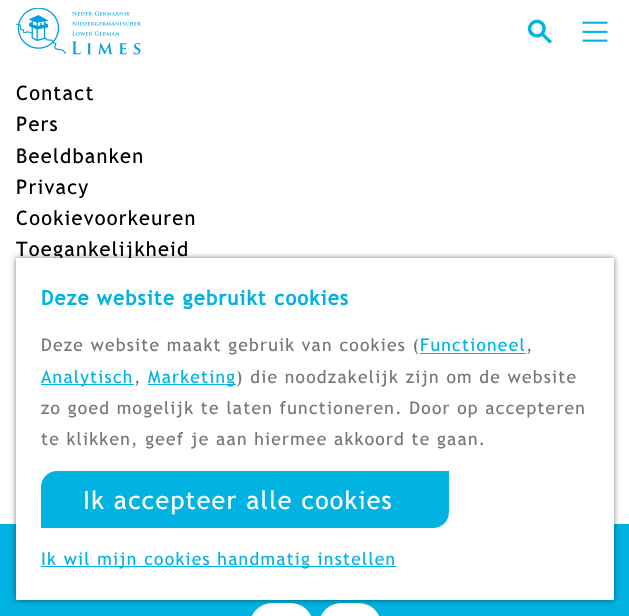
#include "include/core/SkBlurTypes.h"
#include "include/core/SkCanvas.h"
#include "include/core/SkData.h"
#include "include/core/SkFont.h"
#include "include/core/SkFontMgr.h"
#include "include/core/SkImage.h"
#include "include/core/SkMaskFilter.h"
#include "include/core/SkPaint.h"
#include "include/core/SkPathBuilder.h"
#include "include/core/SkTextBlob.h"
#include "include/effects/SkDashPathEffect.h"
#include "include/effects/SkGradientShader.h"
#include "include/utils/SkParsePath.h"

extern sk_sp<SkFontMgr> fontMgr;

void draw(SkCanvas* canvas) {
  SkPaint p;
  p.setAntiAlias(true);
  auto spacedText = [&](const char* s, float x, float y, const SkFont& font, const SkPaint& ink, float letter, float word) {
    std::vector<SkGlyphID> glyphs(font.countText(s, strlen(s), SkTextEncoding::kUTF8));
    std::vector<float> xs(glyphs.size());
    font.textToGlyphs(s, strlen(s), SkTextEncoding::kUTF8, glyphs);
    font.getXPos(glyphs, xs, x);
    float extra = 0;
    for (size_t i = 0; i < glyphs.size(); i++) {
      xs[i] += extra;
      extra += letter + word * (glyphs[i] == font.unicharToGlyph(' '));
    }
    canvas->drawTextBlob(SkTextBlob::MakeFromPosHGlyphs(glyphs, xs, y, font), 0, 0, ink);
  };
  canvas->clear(SK_ColorWHITE);
  canvas->drawImageRect(SkImages::DeferredFromEncodedData(SkData::MakeFromFileName("images/1.png")), SkRect::MakeLTRB(16, 8, 141, 55), SkSamplingOptions());
  canvas->drawImageRect(SkImages::DeferredFromEncodedData(SkData::MakeFromFileName("images/2.png")), SkRect::MakeLTRB(527, 19, 552, 44), SkSamplingOptions());
  canvas->drawImageRect(SkImages::DeferredFromEncodedData(SkData::MakeFromFileName("images/3.png")), SkRect::MakeLTRB(582, 21, 608, 42), SkSamplingOptions());
  p.setColor(SkColorSetRGB(0, 179, 225));
  canvas->drawRect(SkRect::MakeLTRB(0, 524, 629, 616), p);
  p.setColor(SK_ColorWHITE);
  canvas->drawRoundRect(SkRect::MakeLTRB(250, 603, 313, 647), 31, 31, p);
  canvas->drawRoundRect(SkRect::MakeLTRB(319, 603, 381, 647), 31, 31, p);
  p.setColor(SkColorSetARGB(128, 0, 0, 0));
  p.setMaskFilter(SkMaskFilter::MakeBlur(kNormal_SkBlurStyle, 3));
  canvas->drawRect(SkRect::MakeLTRB(16, 258, 614, 600), p);
  p.setMaskFilter(nullptr);
  SkFont font1(fontMgr->matchFamilyStyle("Trebuchet MS", SkFontStyle::Normal()), 20);
  font1.setSubpixel(true);
  p.setColor(SK_ColorBLACK);
  spacedText("Contact", 16, 100, font1, p, 1.25f, 0);
  spacedText("Pers", 16, 131, font1, p, 1.25f, 0);
  spacedText("Beeldbanken", 16, 163, font1, p, 1.25f, 0);
  spacedText("Privacy", 16, 194, font1, p, 1.25f, 0);
  spacedText("Cookievoorkeuren", 16, 225, font1, p, 1.25f, 0);
  spacedText("Toegankelijkheid", 16, 256, font1, p, 1.25f, 0);
  p.setColor(SK_ColorWHITE);
  canvas->drawRect(SkRect::MakeLTRB(16, 258, 614, 600), p);
  SkFont font2(fontMgr->matchFamilyStyle("Trebuchet MS", SkFontStyle::Bold()), 20);
  font2.setSubpixel(true);
  p.setColor(SkColorSetRGB(0, 179, 225));
  spacedText("Deze website gebruikt cookies", 41, 305, font2, p, 1.25f, 0);
  SkFont font3(fontMgr->matchFamilyStyle("Trebuchet MS", SkFontStyle::Normal()), 17.5f);
  font3.setSubpixel(true);
  p.setColor(SkColorSetRGB(119, 119, 119));
  spacedText("Deze website maakt gebruik van cookies (", 41, 351, font3, p, 1.25f, 0);
  p.setColor(SkColorSetRGB(0, 179, 225));
  spacedText("Functioneel", 420, 351, font3, p, 1.25f, 0);
  canvas->drawRect(SkRect::MakeLTRB(420, 353, 526, 354), p);
  p.setColor(SkColorSetRGB(119, 119, 119));
  spacedText(",", 526, 351, font3, p, 1.25f, 0);
  p.setColor(SkColorSetRGB(0, 179, 225));
  canvas->drawRect(SkRect::MakeLTRB(41, 384, 134, 385), p);
  spacedText("Analytisch", 41, 383, font3, p, 1.25f, 0);
  p.setColor(SkColorSetRGB(119, 119, 119));
  spacedText(",", 134, 383, font3, p, 1.25f, 0);
  p.setColor(SkColorSetRGB(0, 179, 225));
  canvas->drawRect(SkRect::MakeLTRB(148, 384, 236, 385), p);
  spacedText("Marketing", 148, 383, font3, p, 1.25f, 0);
  p.setColor(SkColorSetRGB(119, 119, 119));
  spacedText(") die noodzakelijk zijn om de website", 236, 383, font3, p, 1.25f, 0);
  spacedText("zo goed mogelijk te laten functioneren. Door op accepteren", 41, 414, font3, p, 1.25f, 0);
  spacedText("te klikken, geef je aan hiermee akkoord te gaan.", 41, 445, font3, p, 1.25f, 0);
  p.setColor(SkColorSetRGB(0, 179, 225));
  canvas->drawPath(SkPathBuilder().moveTo(57, 471).lineTo(449, 471).lineTo(449, 512).cubicTo(449, 521, 442, 528, 433, 528).lineTo(41, 528).lineTo(41, 487).cubicTo(41, 478, 48, 471, 57, 471).close().detach(), p);
  SkFont font4(fontMgr->matchFamilyStyle("Trebuchet MS", SkFontStyle::Normal()), 25);
  font4.setSubpixel(true);
  p.setColor(SK_ColorWHITE);
  spacedText("Ik accepteer alle cookies", 83, 509, font4, p, 1.25f, 0);
  p.setColor(SkColorSetRGB(0, 179, 225));
  canvas->drawRect(SkRect::MakeLTRB(41, 566, 396, 567), p);
  spacedText("Ik wil mijn cookies handmatig instellen", 41, 565, font3, p, 1.25f, 0);
}
